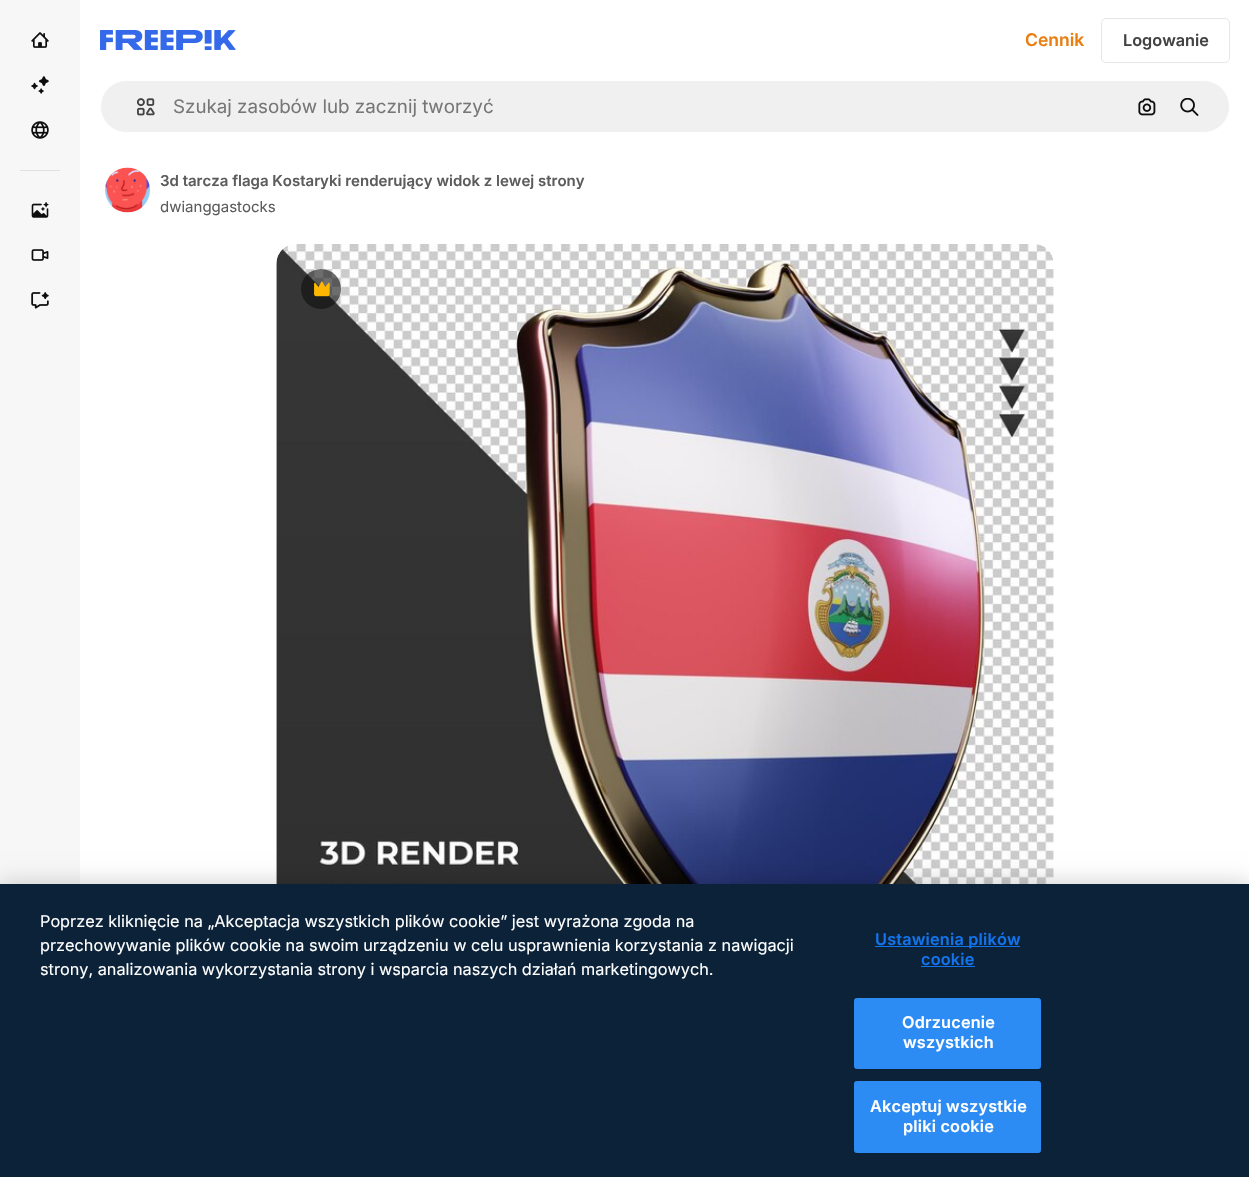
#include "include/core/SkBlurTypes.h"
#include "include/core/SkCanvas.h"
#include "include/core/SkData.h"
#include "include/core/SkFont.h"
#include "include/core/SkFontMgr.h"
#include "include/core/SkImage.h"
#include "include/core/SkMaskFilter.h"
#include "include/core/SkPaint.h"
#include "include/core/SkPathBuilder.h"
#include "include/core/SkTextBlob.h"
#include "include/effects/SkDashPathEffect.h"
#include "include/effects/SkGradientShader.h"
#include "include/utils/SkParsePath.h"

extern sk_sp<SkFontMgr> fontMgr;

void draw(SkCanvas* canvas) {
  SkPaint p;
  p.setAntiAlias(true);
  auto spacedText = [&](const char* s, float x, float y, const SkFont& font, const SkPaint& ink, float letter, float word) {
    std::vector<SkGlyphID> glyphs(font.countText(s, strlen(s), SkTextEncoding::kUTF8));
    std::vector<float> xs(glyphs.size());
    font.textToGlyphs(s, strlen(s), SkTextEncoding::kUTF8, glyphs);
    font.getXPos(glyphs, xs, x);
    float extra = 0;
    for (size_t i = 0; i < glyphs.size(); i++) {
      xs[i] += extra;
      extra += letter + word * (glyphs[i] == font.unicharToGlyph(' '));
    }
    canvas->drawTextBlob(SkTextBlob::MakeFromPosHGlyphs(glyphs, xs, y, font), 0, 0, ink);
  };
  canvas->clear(SK_ColorWHITE);
  p.setColor(SkColorSetRGB(247, 247, 247));
  canvas->drawRect(SkRect::MakeLTRB(0, 0, 80, 884), p);
  canvas->drawImageRect(SkImages::DeferredFromEncodedData(SkData::MakeFromFileName("images/1.png")), SkRect::MakeLTRB(31, 32, 49, 48), SkSamplingOptions());
  canvas->drawImageRect(SkImages::DeferredFromEncodedData(SkData::MakeFromFileName("images/2.png")), SkRect::MakeLTRB(31, 76, 49, 94), SkSamplingOptions());
  canvas->drawImageRect(SkImages::DeferredFromEncodedData(SkData::MakeFromFileName("images/3.png")), SkRect::MakeLTRB(31, 121, 49, 139), SkSamplingOptions());
  p.setColor(SkColorSetRGB(224, 224, 224));
  canvas->drawRect(SkRect::MakeLTRB(20, 170, 60, 171), p);
  canvas->drawImageRect(SkImages::DeferredFromEncodedData(SkData::MakeFromFileName("images/4.png")), SkRect::MakeLTRB(31, 202, 49, 218), SkSamplingOptions());
  canvas->drawImageRect(SkImages::DeferredFromEncodedData(SkData::MakeFromFileName("images/5.png")), SkRect::MakeLTRB(31, 249, 49, 261), SkSamplingOptions());
  canvas->drawImageRect(SkImages::DeferredFromEncodedData(SkData::MakeFromFileName("images/6.png")), SkRect::MakeLTRB(31, 292, 49, 309), SkSamplingOptions());
  canvas->drawImageRect(SkImages::DeferredFromEncodedData(SkData::MakeFromFileName("images/7.png")), SkRect::MakeLTRB(100, 30, 236, 50), SkSamplingOptions());
  p.setStyle(SkPaint::kStroke_Style);
  p.setStrokeWidth(1);
  p.setColor(SkColorSetRGB(231, 231, 231));
  canvas->drawRoundRect(SkRect::MakeLTRB(1101.5f, 18.5f, 1229.5f, 62.5f), 4.5f, 4.5f, p);
  p.setStyle(SkPaint::kFill_Style);
  p.setColor(SkColorSetRGB(240, 240, 240));
  canvas->drawRoundRect(SkRect::MakeLTRB(100.5f, 80.5f, 1229.5f, 132.5f), 26, 26, p);
  p.setStyle(SkPaint::kStroke_Style);
  p.setColor(SK_ColorWHITE);
  canvas->drawRoundRect(SkRect::MakeLTRB(100.5f, 80.5f, 1229.5f, 132.5f), 26, 26, p);
  canvas->drawImageRect(SkImages::DeferredFromEncodedData(SkData::MakeFromFileName("images/8.png")), SkRect::MakeLTRB(136, 98, 155, 116), SkSamplingOptions());
  canvas->drawImageRect(SkImages::DeferredFromEncodedData(SkData::MakeFromFileName("images/9.png")), SkRect::MakeLTRB(1138, 98, 1156, 116), SkSamplingOptions());
  canvas->drawImageRect(SkImages::DeferredFromEncodedData(SkData::MakeFromFileName("images/10.png")), SkRect::MakeLTRB(1180, 98, 1199, 116), SkSamplingOptions());
  canvas->drawImageRect(SkImages::DeferredFromEncodedData(SkData::MakeFromFileName("images/11.png")), SkRect::MakeLTRB(105, 167, 150, 213), SkSamplingOptions());
  canvas->drawImageRect(SkImages::DeferredFromEncodedData(SkData::MakeFromFileName("images/12.png")), SkRect::MakeLTRB(276, 244, 1054, 884), SkSamplingOptions());
  p.setStyle(SkPaint::kFill_Style);
  p.setColor(SkColorSetARGB(153, 13, 13, 13));
  canvas->drawCircle(321, 289, 20, p);
  canvas->drawImageRect(SkImages::DeferredFromEncodedData(SkData::MakeFromFileName("images/13.png")), SkRect::MakeLTRB(314, 281, 330, 297), SkSamplingOptions());
  p.setColor(SkColorSetARGB(51, 0, 0, 0));
  p.setMaskFilter(SkMaskFilter::MakeBlur(kNormal_SkBlurStyle, 11));
  canvas->drawRect(SkRect::MakeLTRB(0, 884, 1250, 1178), p);
  p.setMaskFilter(nullptr);
  p.setColor(SkColorSetRGB(11, 34, 57));
  canvas->drawRect(SkRect::MakeLTRB(0, 884, 1249, 1177), p);
  p.setColor(SkColorSetRGB(18, 115, 235));
  canvas->drawRect(SkRect::MakeLTRB(875, 946, 1020, 947), p);
  canvas->drawRect(SkRect::MakeLTRB(921, 966, 975, 967), p);
  p.setColor(SkColorSetRGB(44, 140, 244));
  canvas->drawRoundRect(SkRect::MakeLTRB(854.5f, 998.5f, 1040.5f, 1068.5f), 2, 2, p);
  p.setStyle(SkPaint::kStroke_Style);
  canvas->drawRoundRect(SkRect::MakeLTRB(854.5f, 998.5f, 1040.5f, 1068.5f), 2, 2, p);
  p.setStyle(SkPaint::kFill_Style);
  canvas->drawRoundRect(SkRect::MakeLTRB(854.5f, 1081.5f, 1040.5f, 1152.5f), 2, 2, p);
  p.setStyle(SkPaint::kStroke_Style);
  canvas->drawRoundRect(SkRect::MakeLTRB(854.5f, 1081.5f, 1040.5f, 1152.5f), 2, 2, p);
  SkFont font1(fontMgr->matchFamilyStyle("Inter", SkFontStyle(600, SkFontStyle::kNormal_Width, SkFontStyle::kUpright_Slant)), 17.5f);
  font1.setSubpixel(true);
  p.setStyle(SkPaint::kFill_Style);
  p.setColor(SkColorSetRGB(234, 126, 17));
  canvas->drawString("Cennik", 1025, 46, font1, p);
  SkFont font2(fontMgr->matchFamilyStyle("Inter", SkFontStyle(600, SkFontStyle::kNormal_Width, SkFontStyle::kUpright_Slant)), 16.25f);
  font2.setSubpixel(true);
  p.setColor(SkColorSetRGB(66, 66, 66));
  canvas->drawString("Logowanie", 1123, 46, font2, p);
  SkFont font3(fontMgr->matchFamilyStyle("Inter", SkFontStyle::Normal()), 18.75f);
  font3.setSubpixel(true);
  p.setColor(SkColorSetRGB(119, 119, 119));
  canvas->drawString("Szukaj zasobów lub zacznij tworzyć", 173, 113, font3, p);
  SkFont font4(fontMgr->matchFamilyStyle("Inter", SkFontStyle(600, SkFontStyle::kNormal_Width, SkFontStyle::kUpright_Slant)), 15);
  font4.setSubpixel(true);
  p.setColor(SkColorSetRGB(92, 92, 92));
  canvas->drawString("3d tarcza flaga Kostaryki renderujący widok z lewej strony", 160, 186, font4, p);
  SkFont font5(fontMgr->matchFamilyStyle("Inter", SkFontStyle::Normal()), 15);
  font5.setSubpixel(true);
  canvas->drawString("dwianggastocks", 160, 212, font5, p);
  SkFont font6(fontMgr->matchFamilyStyle("Inter", SkFontStyle::Normal()), 16.25f);
  font6.setSubpixel(true);
  p.setColor(SK_ColorWHITE);
  canvas->drawString("Poprzez kliknięcie na „Akceptacja wszystkich plików cookie” jest wyrażona zgoda na", 40, 927, font6, p);
  canvas->drawString("przechowywanie plików cookie na swoim urządzeniu w celu usprawnienia korzystania z nawigacji", 40, 951, font6, p);
  canvas->drawString("strony, analizowania wykorzystania strony i wsparcia naszych działań marketingowych.", 40, 975, font6, p);
  p.setColor(SkColorSetRGB(18, 115, 235));
  spacedText("Ustawienia plików", 875, 945, font2, p, 0.2f, 0);
  spacedText("cookie", 921, 965, font2, p, 0.2f, 0);
  p.setColor(SK_ColorWHITE);
  spacedText("Odrzucenie", 902, 1028, font2, p, 0.2f, 0);
  spacedText("wszystkich", 903, 1048, font2, p, 0.2f, 0);
  spacedText("Akceptuj wszystkie", 870, 1112, font2, p, 0.2f, 0);
  spacedText("pliki cookie", 903, 1132, font2, p, 0.2f, 0);
}
